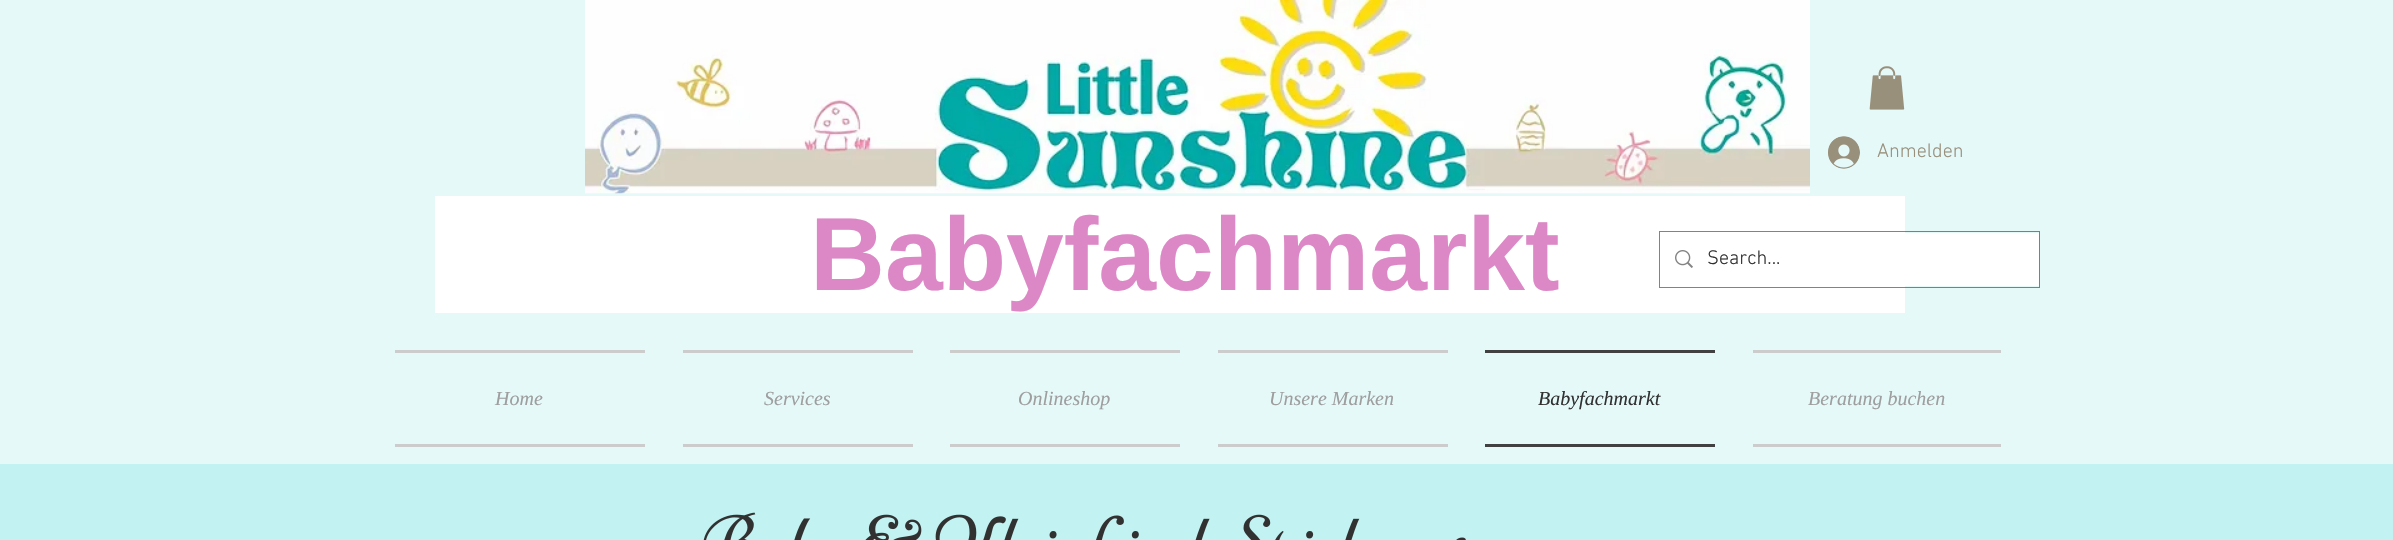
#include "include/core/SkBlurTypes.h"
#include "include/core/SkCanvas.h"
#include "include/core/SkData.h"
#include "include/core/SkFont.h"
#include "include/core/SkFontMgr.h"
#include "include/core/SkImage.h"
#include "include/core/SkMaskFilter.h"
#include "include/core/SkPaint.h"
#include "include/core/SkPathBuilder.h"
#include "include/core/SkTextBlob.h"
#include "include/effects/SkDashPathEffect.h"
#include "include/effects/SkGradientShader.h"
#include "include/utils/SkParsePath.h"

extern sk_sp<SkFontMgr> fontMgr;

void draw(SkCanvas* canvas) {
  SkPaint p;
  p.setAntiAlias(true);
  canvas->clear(SkColorSetRGB(194, 242, 242));
  p.setColor(SkColorSetRGB(230, 249, 249));
  canvas->drawRect(SkRect::MakeLTRB(0, 0, 2393, 464), p);
  canvas->drawImageRect(SkImages::DeferredFromEncodedData(SkData::MakeFromFileName("images/1.png")), SkRect::MakeLTRB(585, 0, 1810, 194), SkSamplingOptions());
  canvas->drawImageRect(SkImages::DeferredFromEncodedData(SkData::MakeFromFileName("images/2.png")), SkRect::MakeLTRB(1869, 66, 1905, 110), SkSamplingOptions());
  canvas->drawImageRect(SkImages::DeferredFromEncodedData(SkData::MakeFromFileName("images/3.png")), SkRect::MakeLTRB(1828, 136, 1860, 169), SkSamplingOptions());
  p.setColor(SK_ColorWHITE);
  canvas->drawRect(SkRect::MakeLTRB(435, 196, 1905, 313), p);
  p.setStyle(SkPaint::kStroke_Style);
  p.setStrokeWidth(1);
  p.setColor(SkColorSetARGB(153, 49, 49, 49));
  canvas->drawRect(SkRect::MakeLTRB(1659.5f, 231.5f, 2039.5f, 287.5f), p);
  p.setStyle(SkPaint::kFill_Style);
  p.setColor(SK_ColorWHITE);
  canvas->drawRect(SkRect::MakeLTRB(1905, 233, 2039, 286), p);
  canvas->drawImageRect(SkImages::DeferredFromEncodedData(SkData::MakeFromFileName("images/4.png")), SkRect::MakeLTRB(1675, 250, 1693, 268), SkSamplingOptions());
  p.setColor(SkColorSetRGB(204, 204, 204));
  canvas->drawRect(SkRect::MakeLTRB(395, 350, 645, 353), p);
  canvas->drawRect(SkRect::MakeLTRB(395, 444, 645, 447), p);
  canvas->drawRect(SkRect::MakeLTRB(683, 350, 913, 353), p);
  canvas->drawRect(SkRect::MakeLTRB(683, 444, 913, 447), p);
  canvas->drawRect(SkRect::MakeLTRB(950, 350, 1180, 353), p);
  canvas->drawRect(SkRect::MakeLTRB(950, 444, 1180, 447), p);
  canvas->drawRect(SkRect::MakeLTRB(1218, 350, 1448, 353), p);
  canvas->drawRect(SkRect::MakeLTRB(1218, 444, 1448, 447), p);
  p.setColor(SkColorSetRGB(65, 65, 65));
  canvas->drawRect(SkRect::MakeLTRB(1485, 350, 1715, 353), p);
  canvas->drawRect(SkRect::MakeLTRB(1485, 444, 1715, 447), p);
  p.setColor(SkColorSetRGB(204, 204, 204));
  canvas->drawRect(SkRect::MakeLTRB(1753, 350, 2001, 353), p);
  canvas->drawRect(SkRect::MakeLTRB(1753, 444, 2001, 447), p);
  canvas->drawImageRect(SkImages::DeferredFromEncodedData(SkData::MakeFromFileName("images/5.png")), SkRect::MakeLTRB(703, 512, 1466, 540), SkSamplingOptions());
  SkFont font1(fontMgr->matchFamilyStyle("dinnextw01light", SkFontStyle(300, SkFontStyle::kNormal_Width, SkFontStyle::kUpright_Slant)), 20);
  font1.setSubpixel(true);
  p.setColor(SkColorSetRGB(153, 144, 124));
  canvas->drawString("Anmelden", 1877, 157, font1, p);
  SkFont font2(fontMgr->matchFamilyStyle("Liberation Sans", SkFontStyle::Bold()), 103.75f);
  font2.setSubpixel(true);
  p.setColor(SkColorSetRGB(221, 136, 198));
  canvas->drawString("Babyfachmarkt", 810, 290, font2, p);
  p.setColor(SkColorSetRGB(49, 49, 49));
  canvas->drawString("Search...", 1707, 264, font1, p);
  SkFont font3(fontMgr->matchFamilyStyle("Liberation Serif", SkFontStyle::Italic()), 20);
  font3.setSubpixel(true);
  p.setColor(SkColorSetRGB(158, 158, 158));
  canvas->drawString("Home", 495, 405, font3, p);
  canvas->drawString("Services", 764, 405, font3, p);
  canvas->drawString("Onlineshop", 1018, 405, font3, p);
  canvas->drawString("Unsere Marken", 1269, 405, font3, p);
  p.setColor(SkColorSetRGB(49, 49, 49));
  canvas->drawString("Babyfachmarkt", 1538, 405, font3, p);
  p.setColor(SkColorSetRGB(158, 158, 158));
  canvas->drawString("Beratung buchen", 1808, 405, font3, p);
}
